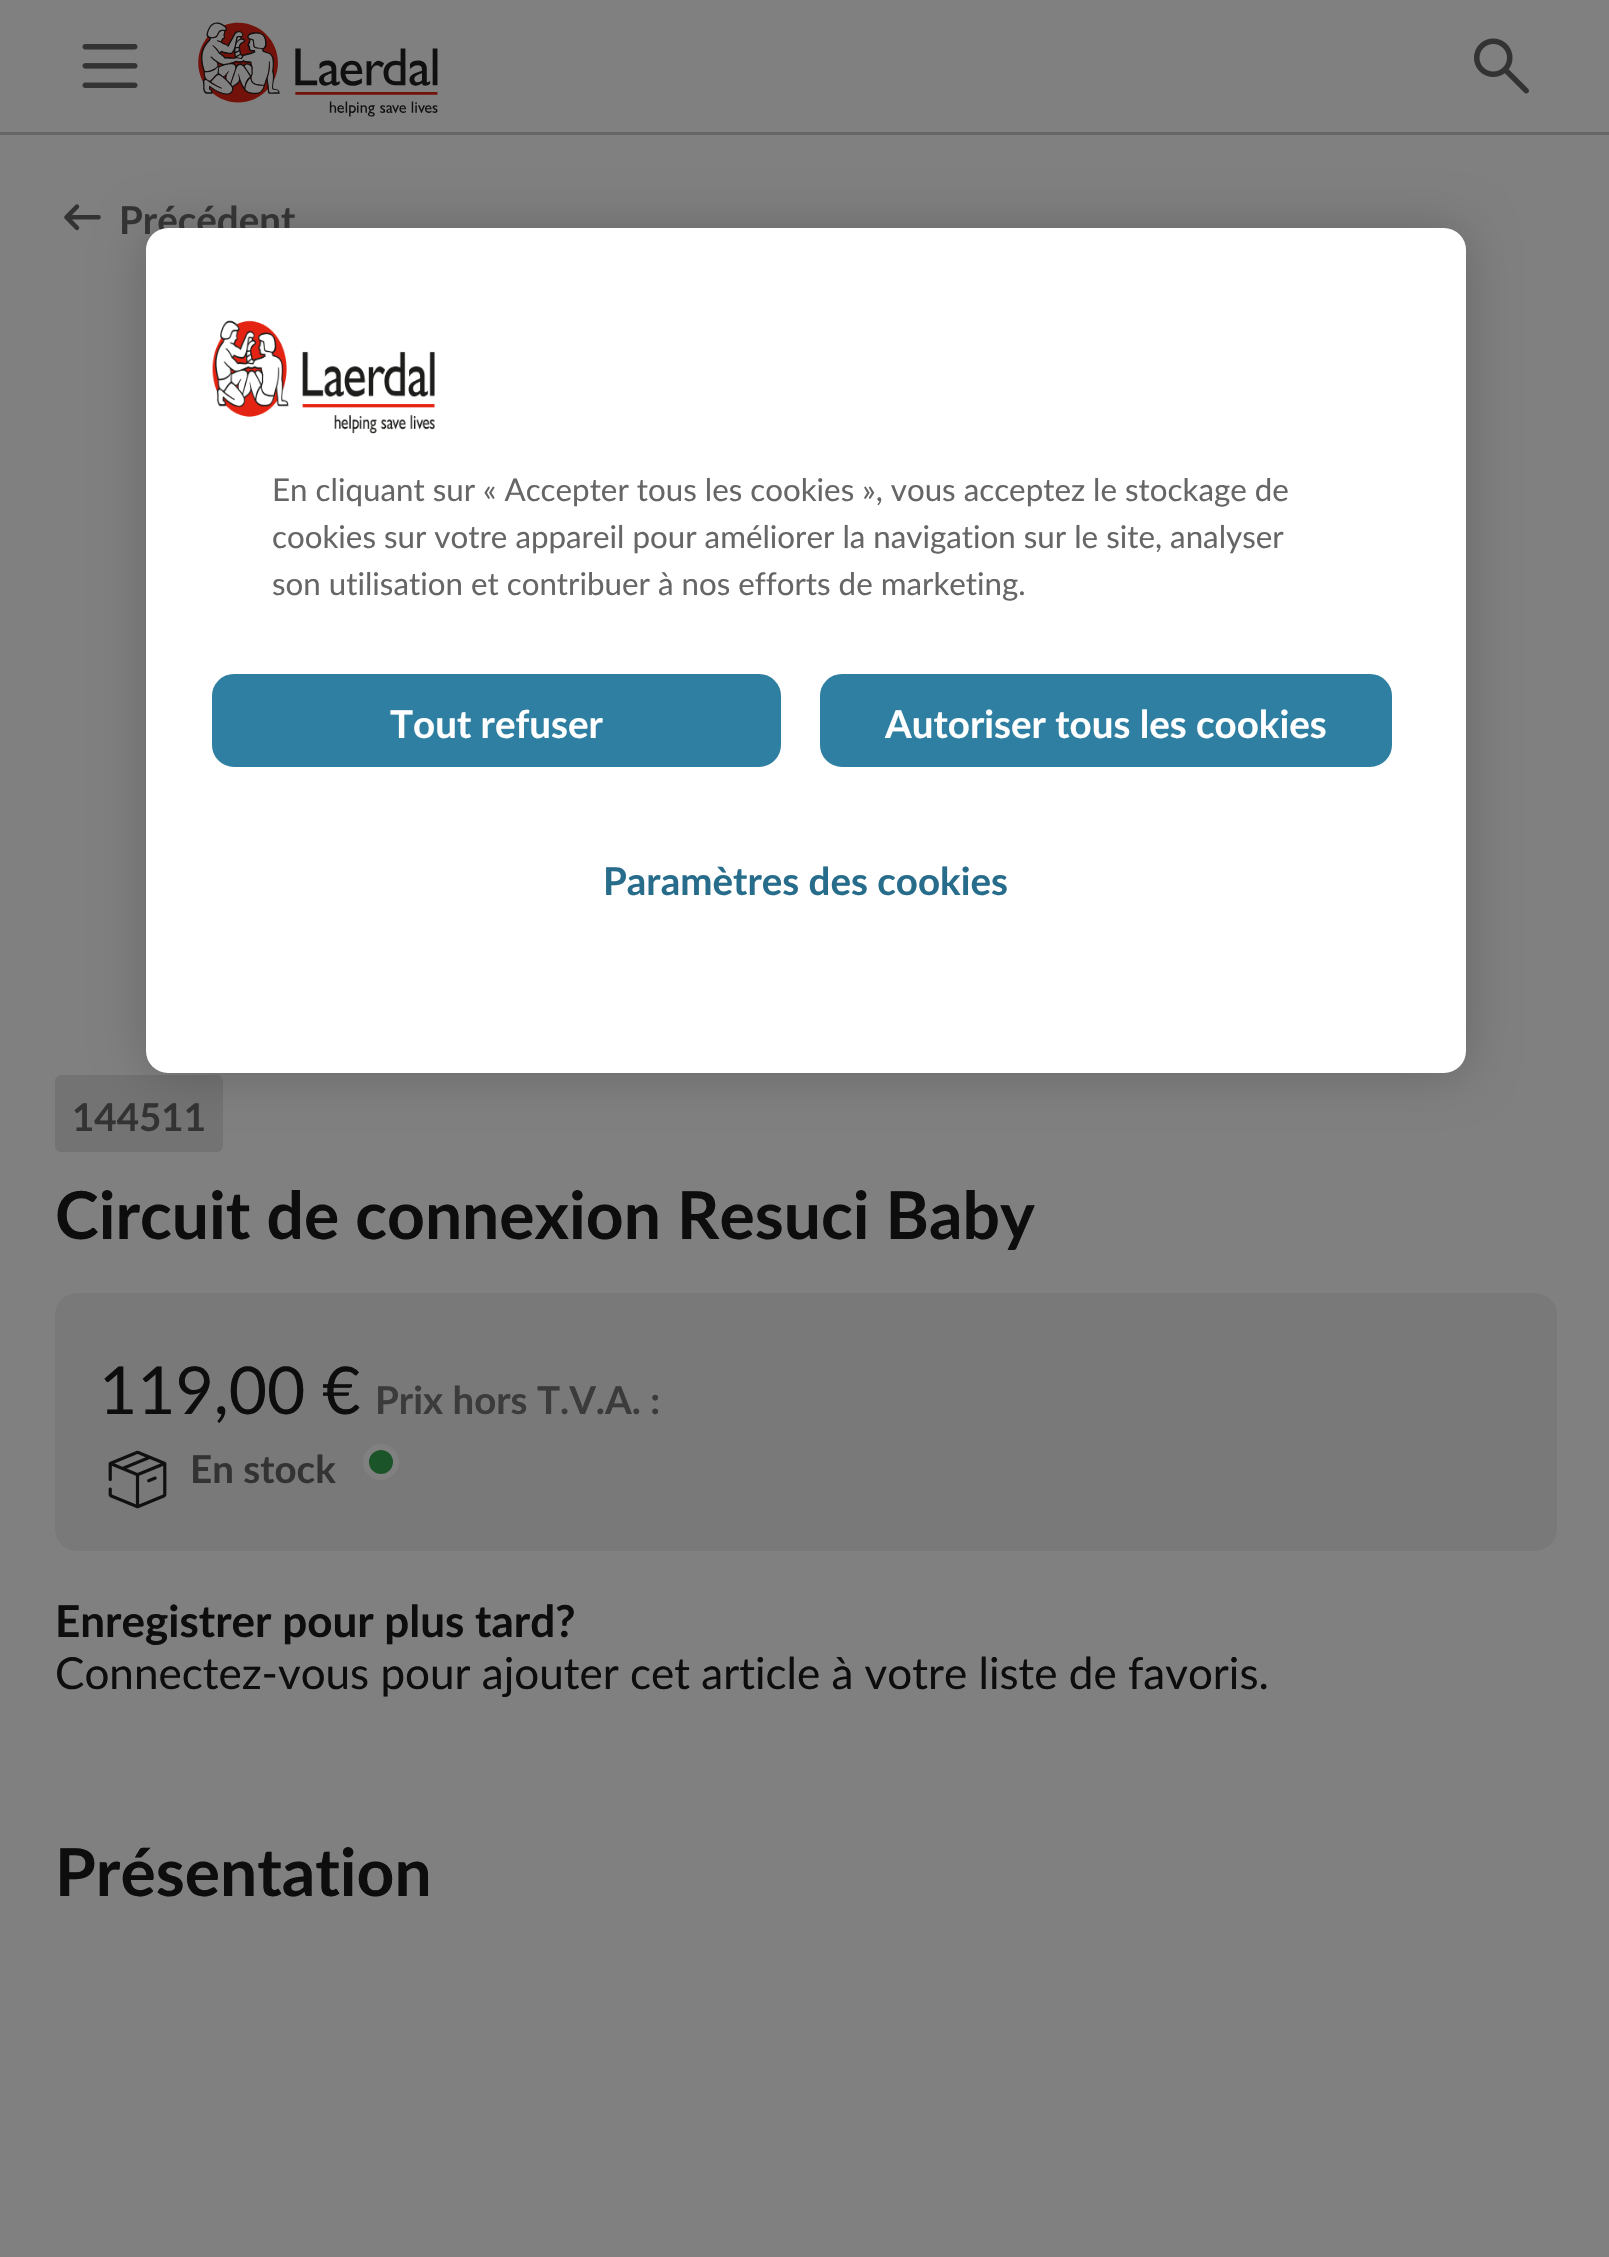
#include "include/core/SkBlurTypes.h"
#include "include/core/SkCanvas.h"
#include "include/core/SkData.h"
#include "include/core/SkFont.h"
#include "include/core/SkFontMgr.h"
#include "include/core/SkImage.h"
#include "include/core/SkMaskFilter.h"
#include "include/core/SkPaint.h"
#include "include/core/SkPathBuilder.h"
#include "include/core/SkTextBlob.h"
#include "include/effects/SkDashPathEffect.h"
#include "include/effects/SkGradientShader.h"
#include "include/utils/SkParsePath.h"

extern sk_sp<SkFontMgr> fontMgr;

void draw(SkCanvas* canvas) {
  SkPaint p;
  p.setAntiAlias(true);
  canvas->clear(SkColorSetRGB(128, 128, 128));
  p.setColor(SkColorSetRGB(102, 102, 102));
  canvas->drawRect(SkRect::MakeLTRB(0, 132, 1609, 135), p);
  canvas->drawImageRect(SkImages::DeferredFromEncodedData(SkData::MakeFromFileName("images/1.png")), SkRect::MakeLTRB(82, 44, 138, 88), SkSamplingOptions());
  canvas->drawImageRect(SkImages::DeferredFromEncodedData(SkData::MakeFromFileName("images/2.png")), SkRect::MakeLTRB(198, 22, 438, 117), SkSamplingOptions());
  canvas->drawImageRect(SkImages::DeferredFromEncodedData(SkData::MakeFromFileName("images/3.png")), SkRect::MakeLTRB(1474, 38, 1529, 94), SkSamplingOptions());
  canvas->drawImageRect(SkImages::DeferredFromEncodedData(SkData::MakeFromFileName("images/4.png")), SkRect::MakeLTRB(64, 204, 101, 231), SkSamplingOptions());
  p.setColor(SkColorSetRGB(115, 115, 115));
  canvas->drawRoundRect(SkRect::MakeLTRB(55, 1075, 223, 1152), 6, 6, p);
  p.setColor(SkColorSetRGB(121, 121, 121));
  canvas->drawRoundRect(SkRect::MakeLTRB(55, 1293, 1557, 1551), 22, 22, p);
  canvas->drawImageRect(SkImages::DeferredFromEncodedData(SkData::MakeFromFileName("images/5.png")), SkRect::MakeLTRB(108, 1450, 167, 1509), SkSamplingOptions());
  p.setColor(SkColorSetRGB(28, 84, 41));
  canvas->drawCircle(381, 1462, 15, p);
  p.setStyle(SkPaint::kStroke_Style);
  p.setStrokeWidth(6);
  p.setColor(SkColorSetRGB(128, 128, 128));
  canvas->drawCircle(381, 1462, 15, p);
  p.setStyle(SkPaint::kFill_Style);
  p.setColor(SkColorSetARGB(51, 0, 0, 0));
  p.setMaskFilter(SkMaskFilter::MakeBlur(kNormal_SkBlurStyle, 25));
  canvas->drawRoundRect(SkRect::MakeLTRB(146, 228, 1466, 1073), 22, 22, p);
  p.setMaskFilter(nullptr);
  SkFont font1(fontMgr->matchFamilyStyle("Lato", SkFontStyle::Bold()), 38.5f);
  font1.setSubpixel(true);
  p.setColor(SkColorSetRGB(51, 51, 51));
  canvas->drawString("Précédent", 119, 234, font1, p);
  canvas->drawString("144511", 72, 1131, font1, p);
  SkFont font2(fontMgr->matchFamilyStyle("Lato", SkFontStyle::Bold()), 66);
  font2.setSubpixel(true);
  p.setColor(SkColorSetRGB(13, 13, 13));
  canvas->drawString("Circuit de connexion Resuci Baby", 55, 1239, font2, p);
  SkFont font3(fontMgr->matchFamilyStyle("Lato", SkFontStyle::Normal()), 66);
  font3.setSubpixel(true);
  canvas->drawString("119,00 €", 99, 1414, font3, p);
  p.setColor(SkColorSetRGB(59, 59, 59));
  canvas->drawString("Prix hors T.V.A. :", 375, 1414, font1, p);
  p.setColor(SkColorSetRGB(51, 51, 51));
  canvas->drawString("En stock", 190, 1483, font1, p);
  SkFont font4(fontMgr->matchFamilyStyle("Lato", SkFontStyle::Bold()), 44);
  font4.setSubpixel(true);
  p.setColor(SkColorSetRGB(13, 13, 13));
  canvas->drawString("Enregistrer pour plus tard?", 55, 1637, font4, p);
  SkFont font5(fontMgr->matchFamilyStyle("Lato", SkFontStyle::Normal()), 44);
  font5.setSubpixel(true);
  canvas->drawString("Connectez-vous pour ajouter cet article à votre liste de favoris.", 55, 1689, font5, p);
  canvas->drawString("Présentation", 55, 1896, font2, p);
  p.setColor(SK_ColorWHITE);
  canvas->drawRoundRect(SkRect::MakeLTRB(146, 228, 1466, 1073), 22, 22, p);
  canvas->drawImageRect(SkImages::DeferredFromEncodedData(SkData::MakeFromFileName("images/6.png")), SkRect::MakeLTRB(212, 320, 435, 434), SkSamplingOptions());
  SkFont font6(fontMgr->matchFamilyStyle("Lato", SkFontStyle::Normal()), 31.3f);
  font6.setSubpixel(true);
  p.setColor(SkColorSetRGB(102, 102, 102));
  canvas->drawString("En cliquant sur « Accepter tous les cookies », vous acceptez le stockage de", 272, 501, font6, p);
  canvas->drawString("cookies sur votre appareil pour améliorer la navigation sur le site, analyser", 272, 548, font6, p);
  canvas->drawString("son utilisation et contribuer à nos efforts de marketing.", 272, 595, font6, p);
  p.setColor(SkColorSetRGB(46, 127, 161));
  canvas->drawRoundRect(SkRect::MakeLTRB(213.5f, 675.5f, 779.5f, 765.5f), 20.5f, 20.5f, p);
  p.setStyle(SkPaint::kStroke_Style);
  p.setStrokeWidth(3);
  canvas->drawRoundRect(SkRect::MakeLTRB(213.5f, 675.5f, 779.5f, 765.5f), 20.5f, 20.5f, p);
  p.setStyle(SkPaint::kFill_Style);
  p.setColor(SK_ColorWHITE);
  canvas->drawString("Tout refuser", 390, 738, font1, p);
  p.setColor(SkColorSetRGB(46, 127, 161));
  canvas->drawRoundRect(SkRect::MakeLTRB(821.5f, 675.5f, 1390.5f, 765.5f), 20.5f, 20.5f, p);
  p.setStyle(SkPaint::kStroke_Style);
  canvas->drawRoundRect(SkRect::MakeLTRB(821.5f, 675.5f, 1390.5f, 765.5f), 20.5f, 20.5f, p);
  p.setStyle(SkPaint::kFill_Style);
  p.setColor(SK_ColorWHITE);
  canvas->drawString("Autoriser tous les cookies", 885, 738, font1, p);
  p.setColor(SkColorSetRGB(39, 109, 139));
  canvas->drawString("Paramètres des cookies", 603, 895, font1, p);
}
